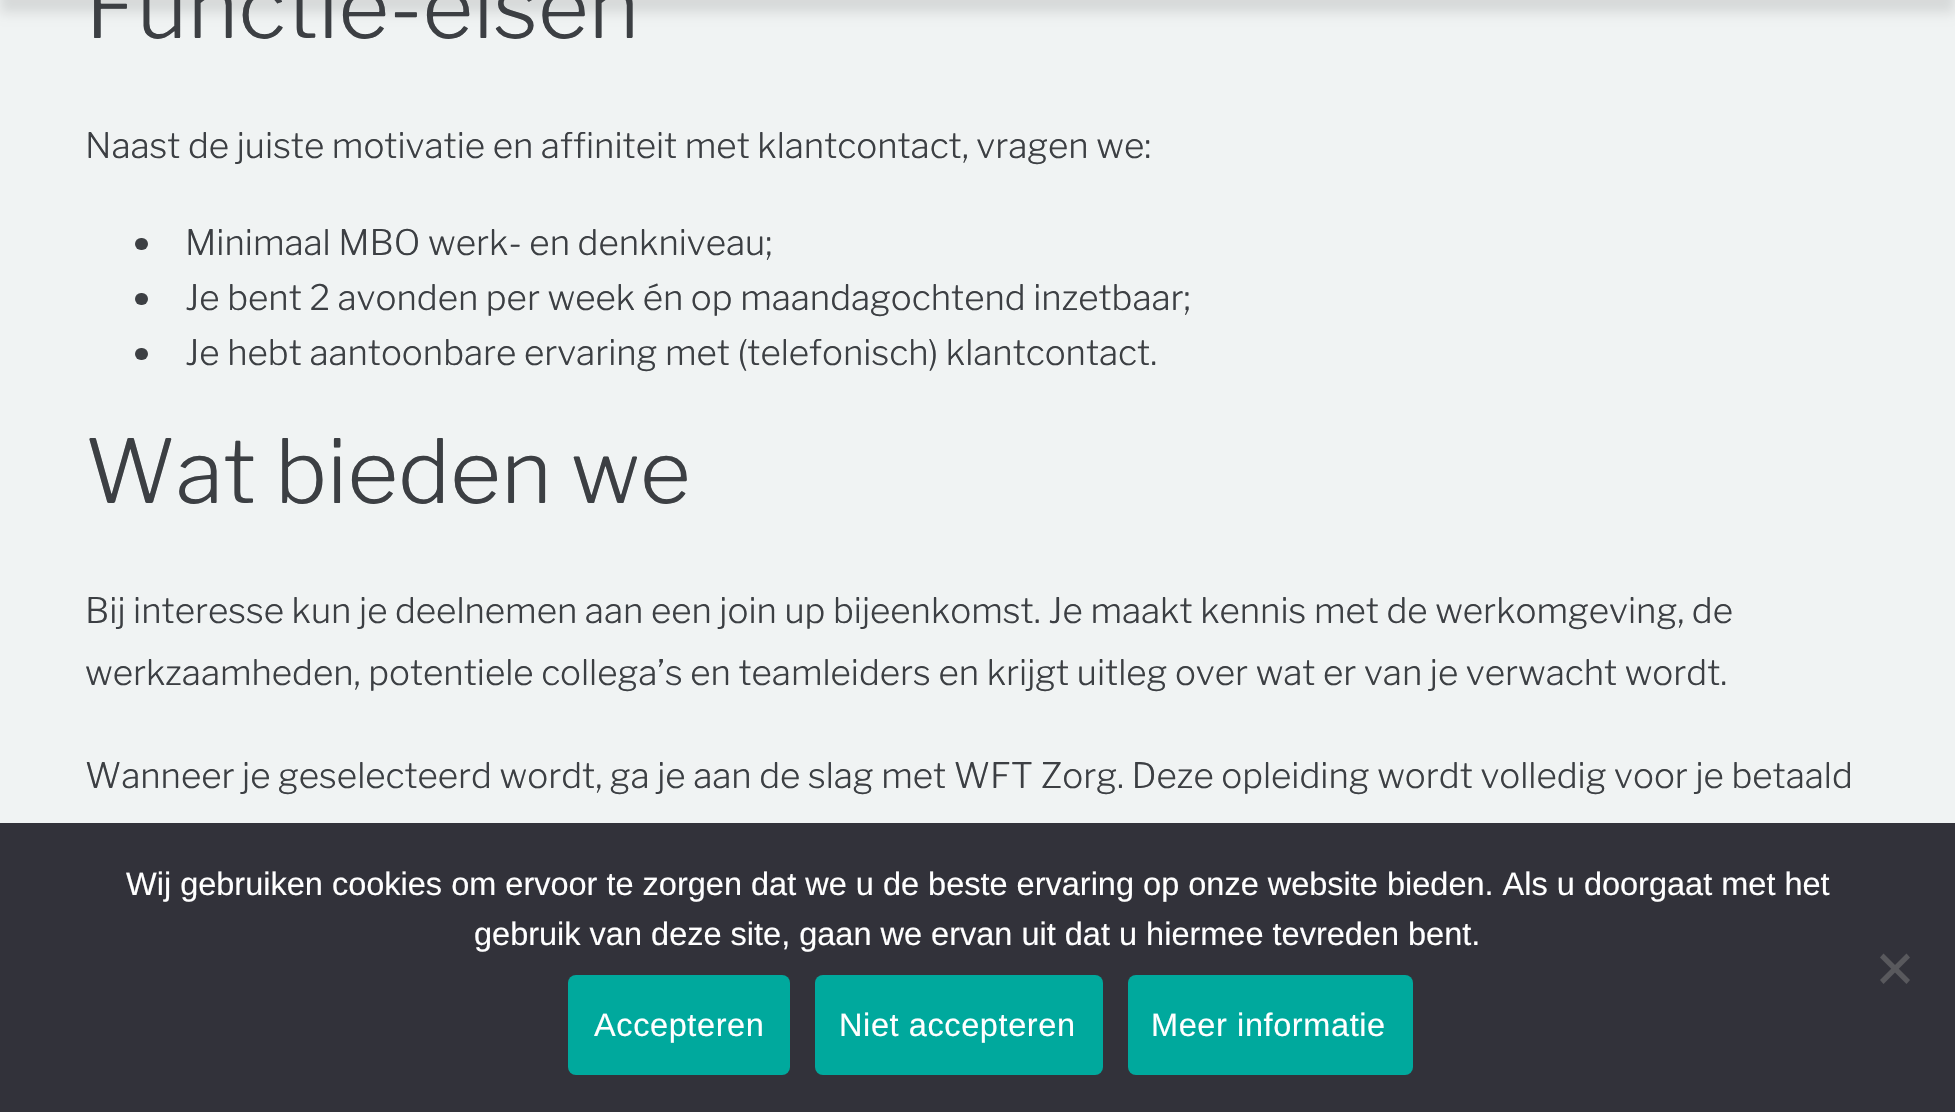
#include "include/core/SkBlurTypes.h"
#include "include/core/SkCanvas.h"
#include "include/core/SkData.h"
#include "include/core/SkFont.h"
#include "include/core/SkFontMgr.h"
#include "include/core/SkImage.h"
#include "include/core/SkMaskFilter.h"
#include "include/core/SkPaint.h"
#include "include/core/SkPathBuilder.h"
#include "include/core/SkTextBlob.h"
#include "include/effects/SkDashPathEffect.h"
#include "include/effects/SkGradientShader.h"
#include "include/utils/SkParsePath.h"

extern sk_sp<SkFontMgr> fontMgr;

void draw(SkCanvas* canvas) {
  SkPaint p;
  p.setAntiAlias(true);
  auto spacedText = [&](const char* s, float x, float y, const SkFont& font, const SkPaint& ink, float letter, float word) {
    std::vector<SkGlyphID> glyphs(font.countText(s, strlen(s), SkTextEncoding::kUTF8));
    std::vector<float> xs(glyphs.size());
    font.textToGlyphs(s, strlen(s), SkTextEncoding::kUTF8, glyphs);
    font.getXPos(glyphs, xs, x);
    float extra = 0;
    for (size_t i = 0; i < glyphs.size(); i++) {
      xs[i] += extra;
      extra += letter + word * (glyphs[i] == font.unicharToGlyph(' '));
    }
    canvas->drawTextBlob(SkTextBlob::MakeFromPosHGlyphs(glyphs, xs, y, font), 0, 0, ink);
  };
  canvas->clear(SkColorSetRGB(240, 243, 243));
  p.setColor(SkColorSetARGB(26, 0, 0, 0));
  p.setMaskFilter(SkMaskFilter::MakeBlur(kNormal_SkBlurStyle, 6));
  canvas->drawRect(SkRect::MakeLTRB(0, -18, 1955, 13), p);
  p.setMaskFilter(nullptr);
  p.setColor(SkColorSetRGB(60, 63, 67));
  canvas->drawRoundRect(SkRect::MakeLTRB(135, 238, 148, 250), 6, 6, p);
  canvas->drawRoundRect(SkRect::MakeLTRB(135, 293, 148, 305), 6, 6, p);
  canvas->drawRoundRect(SkRect::MakeLTRB(135, 348, 148, 360), 6, 6, p);
  p.setColor(SkColorSetRGB(50, 50, 58));
  canvas->drawRect(SkRect::MakeLTRB(0, 823, 1955, 1112), p);
  p.setColor(SkColorSetRGB(89, 89, 93));
  canvas->drawPath(SkPathBuilder().moveTo(1906.5f, 953.5f).lineTo(1910, 957.5f).lineTo(1883.5f, 984).lineTo(1880, 980).close().detach(), p);
  canvas->drawPath(SkPathBuilder().moveTo(1880, 957.5f).lineTo(1883.5f, 953.5f).lineTo(1910, 980).lineTo(1906.5f, 984).close().detach(), p);
  p.setColor(SkColorSetRGB(0, 169, 157));
  canvas->drawRoundRect(SkRect::MakeLTRB(568, 975, 790, 1075), 8, 8, p);
  canvas->drawRoundRect(SkRect::MakeLTRB(815, 975, 1103, 1075), 8, 8, p);
  canvas->drawRoundRect(SkRect::MakeLTRB(1128, 975, 1413, 1075), 8, 8, p);
  SkFont font1(fontMgr->matchFamilyStyle("Libre Franklin", SkFontStyle(300, SkFontStyle::kNormal_Width, SkFontStyle::kUpright_Slant)), 87.5f);
  font1.setSubpixel(true);
  p.setColor(SkColorSetRGB(60, 63, 67));
  canvas->drawString("Functie-eisen", 85, 38, font1, p);
  SkFont font2(fontMgr->matchFamilyStyle("Libre Franklin", SkFontStyle(300, SkFontStyle::kNormal_Width, SkFontStyle::kUpright_Slant)), 35);
  font2.setSubpixel(true);
  canvas->drawString("Naast de juiste motivatie en affiniteit met klantcontact, vragen we:", 85, 158, font2, p);
  canvas->drawString("Minimaal MBO werk- en denkniveau;", 185, 255, font2, p);
  canvas->drawString("Je bent 2 avonden per week én op maandagochtend inzetbaar;", 185, 310, font2, p);
  canvas->drawString("Je hebt aantoonbare ervaring met (telefonisch) klantcontact.", 185, 365, font2, p);
  canvas->drawString("Wat bieden we", 85, 503, font1, p);
  canvas->drawString("Bij interesse kun je deelnemen aan een join up bijeenkomst. Je maakt kennis met de werkomgeving, de", 85, 623, font2, p);
  canvas->drawString("werkzaamheden, potentiele collega’s en teamleiders en krijgt uitleg over wat er van je verwacht wordt.", 85, 685, font2, p);
  canvas->drawString("Wanneer je geselecteerd wordt, ga je aan de slag met WFT Zorg. Deze opleiding wordt volledig voor je betaald", 85, 788, font2, p);
  SkFont font3(fontMgr->matchFamilyStyle("Liberation Sans", SkFontStyle::Normal()), 32.5f);
  font3.setSubpixel(true);
  p.setColor(SK_ColorWHITE);
  canvas->drawString("Wij gebruiken cookies om ervoor te zorgen dat we u de beste ervaring op onze website bieden. Als u doorgaat met het", 126, 895, font3, p);
  canvas->drawString("gebruik van deze site, gaan we ervan uit dat u hiermee tevreden bent.", 474, 945, font3, p);
  spacedText("Accepteren", 594, 1036, font3, p, 0.6f, 0);
  spacedText("Niet accepteren", 839, 1036, font3, p, 0.6f, 0);
  spacedText("Meer informatie", 1151, 1036, font3, p, 0.6f, 0);
}
